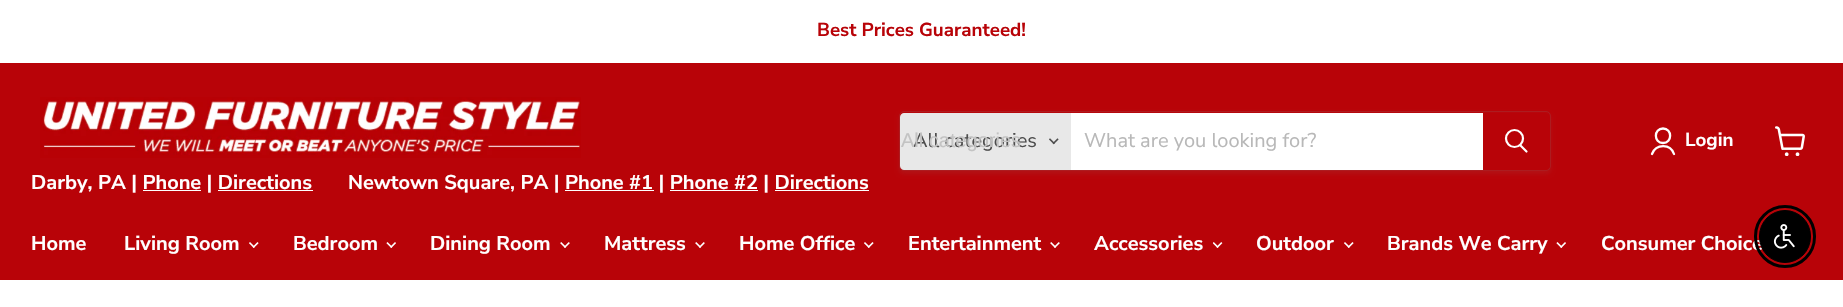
#include "include/core/SkBlurTypes.h"
#include "include/core/SkCanvas.h"
#include "include/core/SkData.h"
#include "include/core/SkFont.h"
#include "include/core/SkFontMgr.h"
#include "include/core/SkImage.h"
#include "include/core/SkMaskFilter.h"
#include "include/core/SkPaint.h"
#include "include/core/SkPathBuilder.h"
#include "include/core/SkTextBlob.h"
#include "include/effects/SkDashPathEffect.h"
#include "include/effects/SkGradientShader.h"
#include "include/utils/SkParsePath.h"

extern sk_sp<SkFontMgr> fontMgr;

void draw(SkCanvas* canvas) {
  SkPaint p;
  p.setAntiAlias(true);
  canvas->clear(SK_ColorWHITE);
  p.setColor(SkColorSetRGB(184, 3, 8));
  canvas->drawRect(SkRect::MakeLTRB(0, 63, 1843, 280), p);
  p.setColor(SkColorSetARGB(28, 128, 128, 128));
  p.setMaskFilter(SkMaskFilter::MakeBlur(kNormal_SkBlurStyle, 2));
  canvas->drawRoundRect(SkRect::MakeLTRB(899, 114, 1551, 174), 5, 5, p);
  p.setMaskFilter(nullptr);
  p.setStyle(SkPaint::kStroke_Style);
  p.setStrokeWidth(1);
  p.setColor(SkColorSetRGB(173, 28, 32));
  canvas->drawRoundRect(SkRect::MakeLTRB(899.5f, 111.5f, 1550.5f, 170.5f), 4.5f, 4.5f, p);
  p.setStyle(SkPaint::kFill_Style);
  p.setColor(SkColorSetRGB(232, 232, 232));
  canvas->drawPath(SkPathBuilder().moveTo(904, 113).lineTo(1071, 113).lineTo(1071, 170).lineTo(904, 170).cubicTo(902, 170, 900, 168, 900, 166).lineTo(900, 117).cubicTo(900, 115, 902, 113, 904, 113).close().detach(), p);
  canvas->drawImageRect(SkImages::DeferredFromEncodedData(SkData::MakeFromFileName("images/1.png")), SkRect::MakeLTRB(1049, 138, 1059, 145), SkSamplingOptions());
  p.setColor(SK_ColorWHITE);
  canvas->drawRect(SkRect::MakeLTRB(1071, 113, 1483, 170), p);
  p.setColor(SkColorSetRGB(184, 3, 8));
  canvas->drawPath(SkPathBuilder().moveTo(1483.5f, 113.5f).lineTo(1546, 113.5f).cubicTo(1548, 113.5f, 1549.5f, 115, 1549.5f, 117).lineTo(1549.5f, 166).cubicTo(1549.5f, 168, 1548, 169.5f, 1546, 169.5f).lineTo(1483.5f, 169.5f).close().detach(), p);
  p.setStyle(SkPaint::kStroke_Style);
  canvas->drawPath(SkPathBuilder().moveTo(1483.5f, 113.5f).lineTo(1546, 113.5f).cubicTo(1548, 113.5f, 1549.5f, 115, 1549.5f, 117).lineTo(1549.5f, 166).cubicTo(1549.5f, 168, 1548, 169.5f, 1546, 169.5f).lineTo(1483.5f, 169.5f).close().detach(), p);
  p.setStrokeWidth(2.2f);
  p.setStrokeCap(SkPaint::kRound_Cap);
  p.setColor(SK_ColorWHITE);
  canvas->drawPath(SkPathBuilder().moveTo(1526.5f, 151.5f).lineTo(1520.5f, 145.5f).detach(), p);
  p.setStrokeCap(SkPaint::kButt_Cap);
  canvas->drawCircle(1514.5f, 138.5f, 8.5f, p);
  canvas->drawImageRect(SkImages::DeferredFromEncodedData(SkData::MakeFromFileName("images/2.png")), SkRect::MakeLTRB(40, 97, 581, 158), SkSamplingOptions());
  p.setStyle(SkPaint::kFill_Style);
  canvas->drawRect(SkRect::MakeLTRB(143, 190, 201, 191), p);
  canvas->drawRect(SkRect::MakeLTRB(218, 190, 313, 191), p);
  canvas->drawRect(SkRect::MakeLTRB(565, 190, 654, 191), p);
  canvas->drawRect(SkRect::MakeLTRB(670, 190, 758, 191), p);
  canvas->drawRect(SkRect::MakeLTRB(775, 190, 869, 191), p);
  p.setStyle(SkPaint::kStroke_Style);
  p.setStrokeWidth(2.3f);
  p.setStrokeCap(SkPaint::kRound_Cap);
  p.setStrokeJoin(SkPaint::kRound_Join);
  canvas->drawPath(SkPathBuilder().moveTo(1663, 143).cubicTo(1672.5f, 143, 1672.5f, 128.5f, 1663, 128.5f).cubicTo(1653.5f, 128.5f, 1653.5f, 143, 1663, 143).close().moveTo(1674, 154).cubicTo(1670.5f, 143.5f, 1656, 143.5f, 1652, 154).detach(), p);
  canvas->drawImageRect(SkImages::DeferredFromEncodedData(SkData::MakeFromFileName("images/3.png")), SkRect::MakeLTRB(1775, 126, 1805, 156), SkSamplingOptions());
  canvas->drawImageRect(SkImages::DeferredFromEncodedData(SkData::MakeFromFileName("images/4.png")), SkRect::MakeLTRB(249, 242, 259, 248), SkSamplingOptions());
  canvas->drawImageRect(SkImages::DeferredFromEncodedData(SkData::MakeFromFileName("images/5.png")), SkRect::MakeLTRB(386, 242, 396, 248), SkSamplingOptions());
  canvas->drawImageRect(SkImages::DeferredFromEncodedData(SkData::MakeFromFileName("images/6.png")), SkRect::MakeLTRB(560, 242, 570, 248), SkSamplingOptions());
  canvas->drawImageRect(SkImages::DeferredFromEncodedData(SkData::MakeFromFileName("images/6.png")), SkRect::MakeLTRB(695, 242, 705, 248), SkSamplingOptions());
  canvas->drawImageRect(SkImages::DeferredFromEncodedData(SkData::MakeFromFileName("images/4.png")), SkRect::MakeLTRB(864, 242, 874, 248), SkSamplingOptions());
  canvas->drawImageRect(SkImages::DeferredFromEncodedData(SkData::MakeFromFileName("images/6.png")), SkRect::MakeLTRB(1050, 242, 1060, 248), SkSamplingOptions());
  canvas->drawImageRect(SkImages::DeferredFromEncodedData(SkData::MakeFromFileName("images/7.png")), SkRect::MakeLTRB(1213, 242, 1223, 248), SkSamplingOptions());
  canvas->drawImageRect(SkImages::DeferredFromEncodedData(SkData::MakeFromFileName("images/4.png")), SkRect::MakeLTRB(1344, 242, 1354, 248), SkSamplingOptions());
  canvas->drawImageRect(SkImages::DeferredFromEncodedData(SkData::MakeFromFileName("images/5.png")), SkRect::MakeLTRB(1556, 242, 1566, 248), SkSamplingOptions());
  SkFont font1(fontMgr->matchFamilyStyle("Nunito Sans", SkFontStyle::Bold()), 18.75f);
  font1.setSubpixel(true);
  p.setStyle(SkPaint::kFill_Style);
  p.setColor(SkColorSetRGB(184, 3, 8));
  canvas->drawString("Best Prices Guaranteed!", 817, 36, font1, p);
  SkFont font2(fontMgr->matchFamilyStyle("Nunito Sans", SkFontStyle::Normal()), 20);
  font2.setSubpixel(true);
  p.setColor(SkColorSetRGB(77, 77, 77));
  canvas->drawString("All categories", 913, 147, font2, p);
  SkFont font3(fontMgr->matchFamilyStyle("Liberation Sans", SkFontStyle::Normal()), 20);
  font3.setSubpixel(true);
  p.setColor(SkColorSetRGB(195, 195, 195));
  canvas->drawString("All categories", 901, 147, font3, p);
  p.setColor(SkColorSetRGB(184, 184, 184));
  canvas->drawString("What are you looking for?", 1084, 147, font2, p);
  SkFont font4(fontMgr->matchFamilyStyle("Nunito Sans", SkFontStyle::Bold()), 20);
  font4.setSubpixel(true);
  p.setColor(SK_ColorWHITE);
  canvas->drawString("Darby, PA | Phone | Directions", 31, 189, font4, p);
  canvas->drawString("Newtown Square, PA | Phone #1 | Phone #2 | Directions", 348, 189, font4, p);
  canvas->drawString("Login", 1685, 146, font1, p);
  canvas->drawString("Home", 31, 250, font4, p);
  canvas->drawString("Living Room", 124, 250, font4, p);
  canvas->drawString("Bedroom", 293, 250, font4, p);
  canvas->drawString("Dining Room", 430, 250, font4, p);
  canvas->drawString("Mattress", 604, 250, font4, p);
  canvas->drawString("Home Office", 739, 250, font4, p);
  canvas->drawString("Entertainment", 908, 250, font4, p);
  canvas->drawString("Accessories", 1094, 250, font4, p);
  canvas->drawString("Outdoor", 1256, 250, font4, p);
  canvas->drawString("Brands We Carry", 1387, 250, font4, p);
  canvas->drawString("Consumer Choice", 1601, 250, font4, p);
  p.setStyle(SkPaint::kStroke_Style);
  p.setStrokeWidth(3);
  p.setStrokeCap(SkPaint::kButt_Cap);
  p.setStrokeJoin(SkPaint::kMiter_Join);
  p.setColor(SK_ColorBLACK);
  canvas->drawRoundRect(SkRect::MakeLTRB(1755.5f, 206.5f, 1814.5f, 266.5f), 29.5f, 29.5f, p);
  p.setStyle(SkPaint::kFill_Style);
  canvas->drawRoundRect(SkRect::MakeLTRB(1759.5f, 210.5f, 1810.5f, 262.5f), 25.5f, 25.5f, p);
  p.setStyle(SkPaint::kStroke_Style);
  p.setStrokeWidth(1);
  canvas->drawRoundRect(SkRect::MakeLTRB(1759.5f, 210.5f, 1810.5f, 262.5f), 25.5f, 25.5f, p);
  canvas->drawImageRect(SkImages::DeferredFromEncodedData(SkData::MakeFromFileName("images/8.png")), SkRect::MakeLTRB(1773, 224, 1795, 249), SkSamplingOptions());
}
